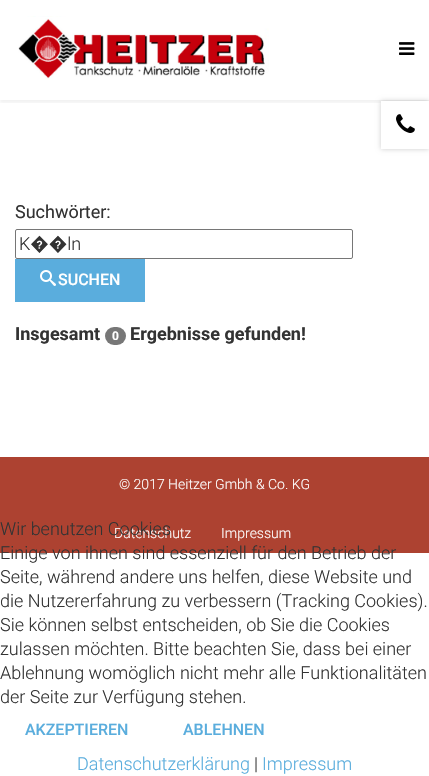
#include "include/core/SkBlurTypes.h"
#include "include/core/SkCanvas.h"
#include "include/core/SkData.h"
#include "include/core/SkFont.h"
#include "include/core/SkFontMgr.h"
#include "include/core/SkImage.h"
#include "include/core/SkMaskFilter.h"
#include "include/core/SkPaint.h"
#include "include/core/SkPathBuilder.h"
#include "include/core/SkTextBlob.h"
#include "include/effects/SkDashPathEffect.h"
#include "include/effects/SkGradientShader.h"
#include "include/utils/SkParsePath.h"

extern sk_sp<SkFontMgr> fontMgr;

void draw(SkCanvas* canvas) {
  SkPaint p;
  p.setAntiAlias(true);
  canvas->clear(SK_ColorWHITE);
  canvas->save();
  canvas->clipRect(SkRect::MakeLTRB(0, 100, 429, 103));
  p.setColor(SkColorSetARGB(13, 0, 0, 0));
  p.setMaskFilter(SkMaskFilter::MakeBlur(kNormal_SkBlurStyle, 1.5f));
  canvas->drawRect(SkRect::MakeLTRB(0, 3, 429, 103), p);
  p.setMaskFilter(nullptr);
  canvas->restore();
  canvas->drawImageRect(SkImages::DeferredFromEncodedData(SkData::MakeFromFileName("images/1.png")), SkRect::MakeLTRB(18, 16, 269, 79), SkSamplingOptions());
  canvas->drawImageRect(SkImages::DeferredFromEncodedData(SkData::MakeFromFileName("images/2.png")), SkRect::MakeLTRB(399, 42, 415, 55), SkSamplingOptions());
  p.setStyle(SkPaint::kStroke_Style);
  p.setStrokeWidth(1);
  p.setColor(SkColorSetRGB(118, 118, 118));
  canvas->drawRoundRect(SkRect::MakeLTRB(15.5f, 229.5f, 352.5f, 258.5f), 1.5f, 1.5f, p);
  p.setStyle(SkPaint::kFill_Style);
  p.setColor(SkColorSetRGB(90, 173, 221));
  canvas->drawRect(SkRect::MakeLTRB(15, 259, 145, 302), p);
  canvas->drawImageRect(SkImages::DeferredFromEncodedData(SkData::MakeFromFileName("images/3.png")), SkRect::MakeLTRB(40, 270, 56, 286), SkSamplingOptions());
  p.setColor(SkColorSetRGB(119, 119, 119));
  canvas->drawRoundRect(SkRect::MakeLTRB(105, 327, 126, 345), 9, 9, p);
  p.setColor(SkColorSetRGB(173, 66, 49));
  canvas->drawRect(SkRect::MakeLTRB(0, 457, 429, 553), p);
  p.setColor(SkColorSetARGB(51, 0, 0, 0));
  p.setMaskFilter(SkMaskFilter::MakeBlur(kNormal_SkBlurStyle, 2.5f));
  canvas->drawRect(SkRect::MakeLTRB(381, 101, 429, 149), p);
  p.setMaskFilter(nullptr);
  p.setColor(SK_ColorWHITE);
  canvas->drawRect(SkRect::MakeLTRB(381, 101, 429, 149), p);
  canvas->drawImageRect(SkImages::DeferredFromEncodedData(SkData::MakeFromFileName("images/4.png")), SkRect::MakeLTRB(396, 114, 415, 133), SkSamplingOptions());
  SkFont font1(fontMgr->matchFamilyStyle("Roboto", SkFontStyle::Normal()), 18);
  font1.setSubpixel(true);
  p.setColor(SkColorSetRGB(51, 51, 51));
  canvas->drawString("Suchwörter:", 15, 218, font1, p);
  SkFont font2(fontMgr->matchFamilyStyle("Roboto", SkFontStyle(300, SkFontStyle::kNormal_Width, SkFontStyle::kUpright_Slant)), 18);
  font2.setSubpixel(true);
  canvas->drawString("K��ln", 19, 250, font2, p);
  SkFont font3(fontMgr->matchFamilyStyle("Roboto", SkFontStyle(500, SkFontStyle::kNormal_Width, SkFontStyle::kUpright_Slant)), 16);
  font3.setSubpixel(true);
  p.setColor(SK_ColorWHITE);
  canvas->drawString("SUCHEN", 58, 285, font3, p);
  SkFont font4(fontMgr->matchFamilyStyle("Roboto", SkFontStyle::Bold()), 18);
  font4.setSubpixel(true);
  p.setColor(SkColorSetRGB(51, 51, 51));
  canvas->drawString("Insgesamt", 15, 340, font4, p);
  SkFont font5(fontMgr->matchFamilyStyle("Roboto", SkFontStyle::Bold()), 12);
  font5.setSubpixel(true);
  p.setColor(SK_ColorWHITE);
  canvas->drawString("0", 112, 340, font5, p);
  p.setColor(SkColorSetRGB(51, 51, 51));
  canvas->drawString("Ergebnisse gefunden!", 130, 340, font4, p);
  SkFont font6(fontMgr->matchFamilyStyle("Roboto", SkFontStyle(300, SkFontStyle::kNormal_Width, SkFontStyle::kUpright_Slant)), 14);
  font6.setSubpixel(true);
  p.setColor(SK_ColorWHITE);
  canvas->drawString("© 2017 Heitzer Gmbh & Co. KG", 119, 489, font6, p);
  canvas->drawString("Datenschutz", 114, 538, font6, p);
  canvas->drawString("Impressum", 221, 538, font6, p);
  p.setColor(SkColorSetRGB(51, 51, 51));
  canvas->drawString("Wir benutzen Cookies", 0, 535, font2, p);
  canvas->drawString("Einige von ihnen sind essenziell für den Betrieb der", 0, 559, font2, p);
  canvas->drawString("Seite, während andere uns helfen, diese Website und", 0, 583, font2, p);
  canvas->drawString("die Nutzererfahrung zu verbessern (Tracking Cookies).", 0, 607, font2, p);
  canvas->drawString("Sie können selbst entscheiden, ob Sie die Cookies", 0, 631, font2, p);
  canvas->drawString("zulassen möchten. Bitte beachten Sie, dass bei einer", 0, 655, font2, p);
  canvas->drawString("Ablehnung womöglich nicht mehr alle Funktionalitäten", 0, 679, font2, p);
  canvas->drawString("der Seite zur Verfügung stehen.", 0, 703, font2, p);
  p.setColor(SkColorSetRGB(90, 173, 221));
  canvas->drawString("AKZEPTIEREN", 25, 735, font3, p);
  canvas->drawString("ABLEHNEN", 183, 735, font3, p);
  canvas->drawString("Datenschutzerklärung", 77, 770, font2, p);
  p.setColor(SkColorSetRGB(51, 51, 51));
  canvas->drawString("|", 254, 770, font2, p);
  p.setColor(SkColorSetRGB(90, 173, 221));
  canvas->drawString("Impressum", 262, 770, font2, p);
}
